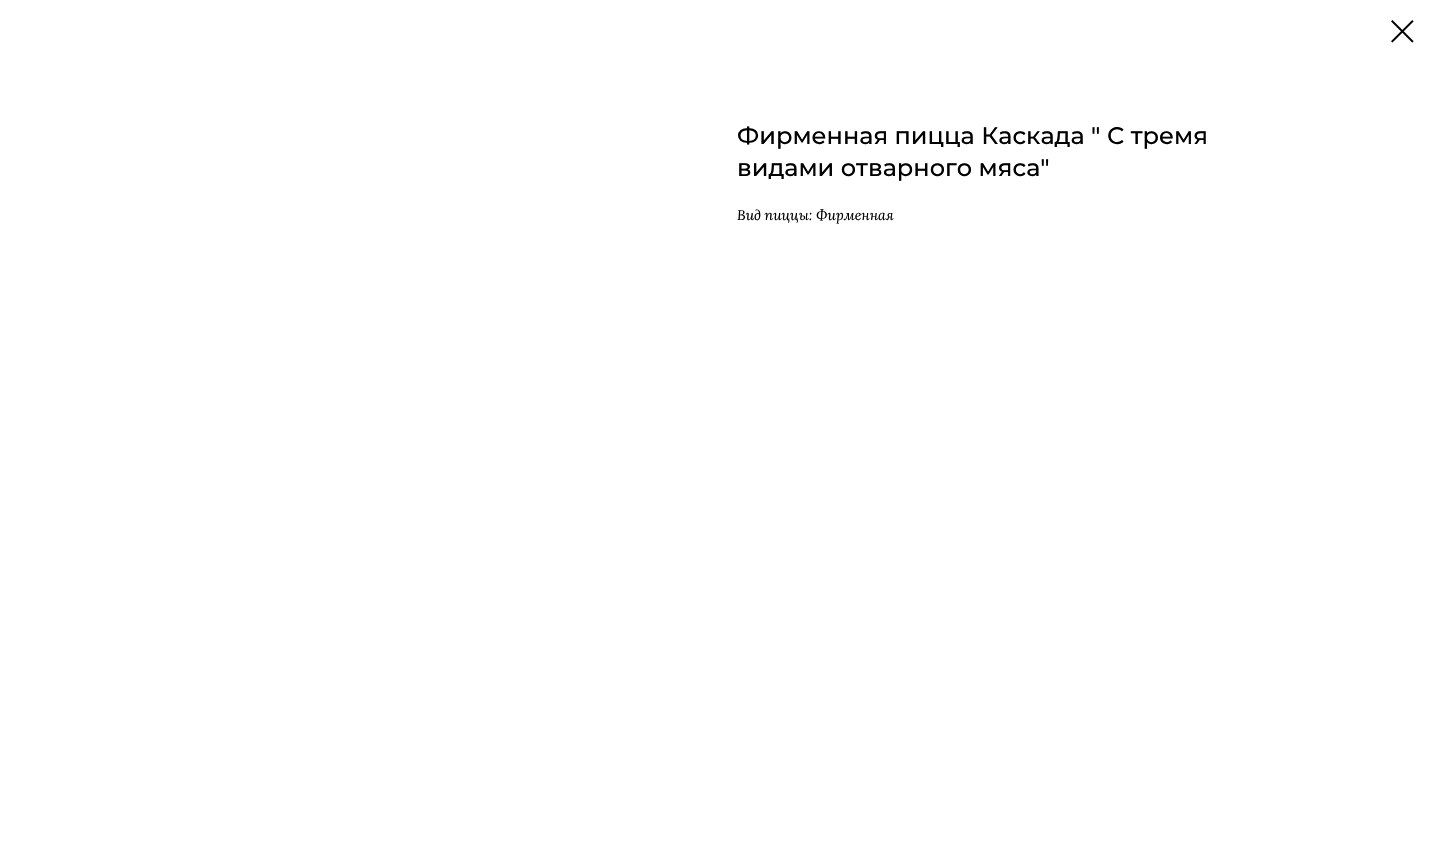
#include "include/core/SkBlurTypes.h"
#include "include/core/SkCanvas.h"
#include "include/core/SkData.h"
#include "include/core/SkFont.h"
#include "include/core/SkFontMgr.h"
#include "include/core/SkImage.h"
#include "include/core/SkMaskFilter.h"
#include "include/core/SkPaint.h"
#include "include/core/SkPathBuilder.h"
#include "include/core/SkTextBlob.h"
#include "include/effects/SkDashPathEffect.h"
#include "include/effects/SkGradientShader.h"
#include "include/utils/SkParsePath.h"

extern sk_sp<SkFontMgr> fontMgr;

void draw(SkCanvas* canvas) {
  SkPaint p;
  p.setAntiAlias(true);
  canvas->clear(SK_ColorWHITE);
  canvas->drawImageRect(SkImages::DeferredFromEncodedData(SkData::MakeFromFileName("images/1.png")), SkRect::MakeLTRB(1391, 20, 1414, 43), SkSamplingOptions());
  SkFont font1(fontMgr->matchFamilyStyle("Montserrat", SkFontStyle(500, SkFontStyle::kNormal_Width, SkFontStyle::kUpright_Slant)), 24);
  font1.setSubpixel(true);
  p.setColor(SK_ColorBLACK);
  canvas->drawString("Фирменная пицца Каскада \" С тремя", 737, 144, font1, p);
  canvas->drawString("видами отварного мяса\"", 737, 176, font1, p);
  SkFont font2(fontMgr->matchFamilyStyle("Lora", SkFontStyle::Italic()), 14);
  font2.setSubpixel(true);
  canvas->drawString("Вид пиццы: Фирменная", 737, 220, font2, p);
}
